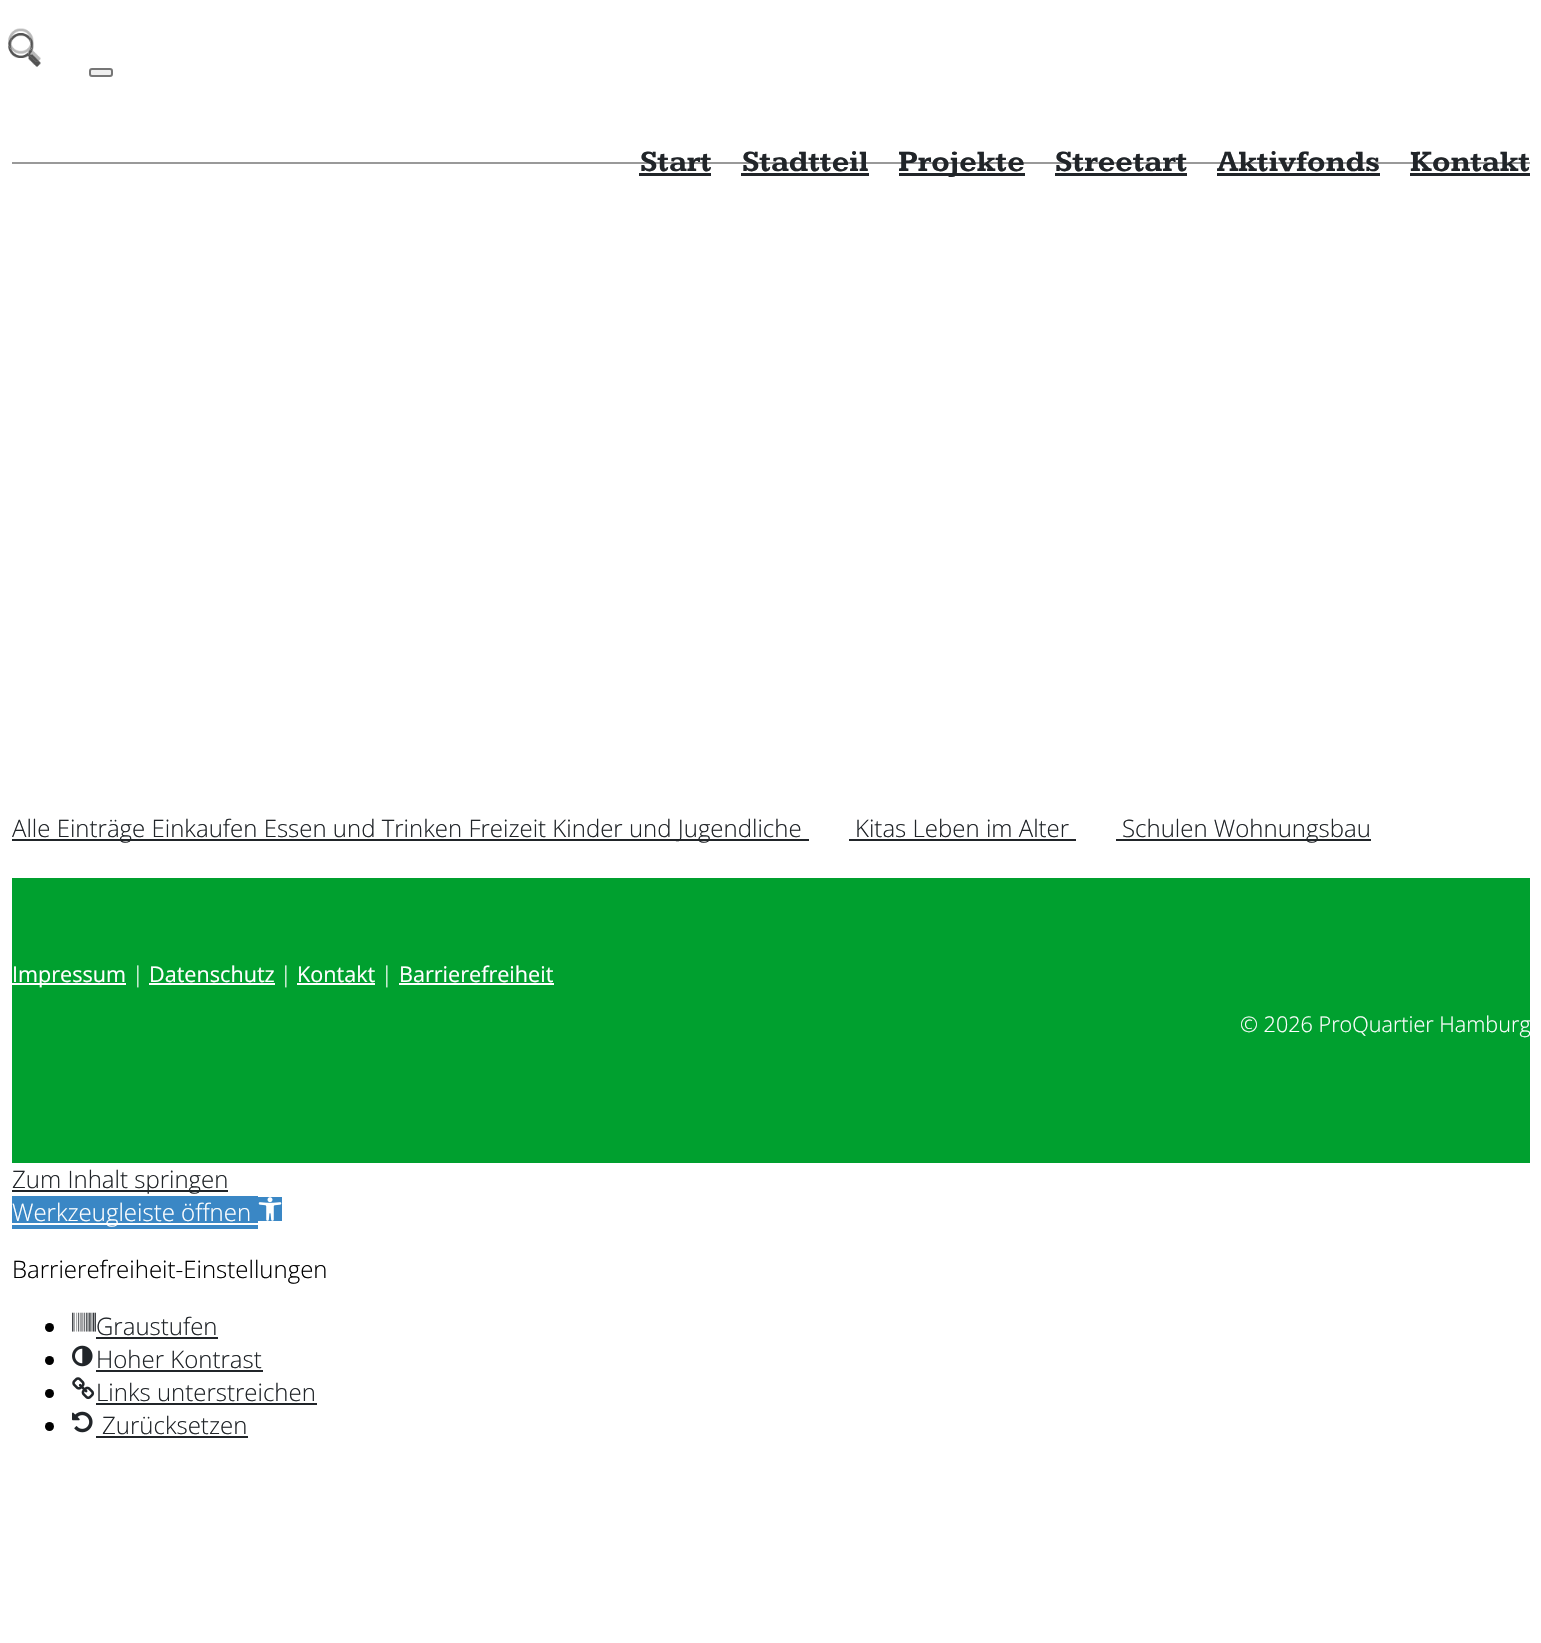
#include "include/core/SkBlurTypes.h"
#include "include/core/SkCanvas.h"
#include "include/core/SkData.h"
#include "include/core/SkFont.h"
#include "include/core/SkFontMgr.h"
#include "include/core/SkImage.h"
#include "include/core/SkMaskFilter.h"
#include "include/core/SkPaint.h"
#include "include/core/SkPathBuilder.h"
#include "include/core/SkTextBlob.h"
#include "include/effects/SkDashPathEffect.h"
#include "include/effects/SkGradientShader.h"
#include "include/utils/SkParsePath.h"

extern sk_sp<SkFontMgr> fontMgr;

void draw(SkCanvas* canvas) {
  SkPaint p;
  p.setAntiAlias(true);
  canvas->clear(SK_ColorWHITE);
  p.setColor(SkColorSetRGB(153, 153, 153));
  canvas->drawRect(SkRect::MakeLTRB(12, 162, 1530, 164), p);
  canvas->drawImageRect(SkImages::DeferredFromEncodedData(SkData::MakeFromFileName("images/2.png")), SkRect::MakeLTRB(8, 33, 41, 67), SkSamplingOptions());
  canvas->drawImageRect(SkImages::DeferredFromEncodedData(SkData::MakeFromFileName("images/1.png")), SkRect::MakeLTRB(8, 28, 41, 62), SkSamplingOptions());
  p.setColor(SkColorSetRGB(239, 239, 239));
  canvas->drawRoundRect(SkRect::MakeLTRB(90, 69, 112, 76), 2, 2, p);
  p.setStyle(SkPaint::kStroke_Style);
  p.setStrokeWidth(2);
  p.setColor(SkColorSetRGB(118, 118, 118));
  canvas->drawRoundRect(SkRect::MakeLTRB(90, 69, 112, 76), 2, 2, p);
  p.setStyle(SkPaint::kFill_Style);
  p.setColor(SkColorSetRGB(33, 37, 41));
  canvas->drawRect(SkRect::MakeLTRB(639, 173, 711, 176), p);
  canvas->drawRect(SkRect::MakeLTRB(741, 173, 869, 176), p);
  canvas->drawRect(SkRect::MakeLTRB(899, 173, 1025, 176), p);
  canvas->drawRect(SkRect::MakeLTRB(1055, 173, 1187, 176), p);
  canvas->drawRect(SkRect::MakeLTRB(1217, 173, 1380, 176), p);
  canvas->drawRect(SkRect::MakeLTRB(1410, 173, 1530, 176), p);
  canvas->drawRect(SkRect::MakeLTRB(12, 839, 809, 841), p);
  canvas->drawRect(SkRect::MakeLTRB(849, 839, 1076, 841), p);
  canvas->drawRect(SkRect::MakeLTRB(1116, 839, 1371, 841), p);
  p.setColor(SkColorSetRGB(0, 160, 47));
  canvas->drawRect(SkRect::MakeLTRB(12, 878, 1530, 1163), p);
  p.setColor(SK_ColorWHITE);
  canvas->drawRect(SkRect::MakeLTRB(12, 983, 126, 985), p);
  canvas->drawRect(SkRect::MakeLTRB(149, 983, 275, 985), p);
  canvas->drawRect(SkRect::MakeLTRB(297, 983, 375, 985), p);
  canvas->drawRect(SkRect::MakeLTRB(399, 983, 554, 985), p);
  p.setColor(SkColorSetRGB(33, 37, 41));
  canvas->drawRect(SkRect::MakeLTRB(12, 1190, 228, 1192), p);
  p.setColor(SkColorSetRGB(58, 135, 197));
  canvas->drawRect(SkRect::MakeLTRB(12, 1196, 258, 1229), p);
  canvas->drawRect(SkRect::MakeLTRB(258, 1197, 282, 1221), p);
  p.setColor(SK_ColorWHITE);
  canvas->drawRect(SkRect::MakeLTRB(12, 1223, 258, 1225), p);
  canvas->drawImageRect(SkImages::DeferredFromEncodedData(SkData::MakeFromFileName("images/3.png")), SkRect::MakeLTRB(258, 1197, 282, 1221), SkSamplingOptions());
  p.setColor(SK_ColorBLACK);
  canvas->drawCircle(49.5f, 1327.5f, 4.5f, p);
  canvas->drawImageRect(SkImages::DeferredFromEncodedData(SkData::MakeFromFileName("images/4.png")), SkRect::MakeLTRB(72, 1312, 96, 1332), SkSamplingOptions());
  p.setColor(SkColorSetRGB(33, 37, 41));
  canvas->drawRect(SkRect::MakeLTRB(96, 1337, 218, 1339), p);
  p.setColor(SK_ColorBLACK);
  canvas->drawCircle(49.5f, 1360.5f, 4.5f, p);
  canvas->drawImageRect(SkImages::DeferredFromEncodedData(SkData::MakeFromFileName("images/5.png")), SkRect::MakeLTRB(72, 1345, 93, 1367), SkSamplingOptions());
  p.setColor(SkColorSetRGB(33, 37, 41));
  canvas->drawRect(SkRect::MakeLTRB(96, 1370, 263, 1372), p);
  p.setColor(SK_ColorBLACK);
  canvas->drawCircle(49.5f, 1393.5f, 4.5f, p);
  canvas->drawImageRect(SkImages::DeferredFromEncodedData(SkData::MakeFromFileName("images/6.png")), SkRect::MakeLTRB(72, 1377, 95, 1400), SkSamplingOptions());
  p.setColor(SkColorSetRGB(33, 37, 41));
  canvas->drawRect(SkRect::MakeLTRB(96, 1403, 317, 1405), p);
  p.setColor(SK_ColorBLACK);
  canvas->drawCircle(49.5f, 1426.5f, 4.5f, p);
  canvas->drawImageRect(SkImages::DeferredFromEncodedData(SkData::MakeFromFileName("images/7.png")), SkRect::MakeLTRB(72, 1411, 93, 1433), SkSamplingOptions());
  p.setColor(SkColorSetRGB(33, 37, 41));
  canvas->drawRect(SkRect::MakeLTRB(96, 1436, 248, 1438), p);
  SkFont font1(fontMgr->matchFamilyStyle("Kameron", SkFontStyle::Bold()), 30);
  font1.setSubpixel(true);
  canvas->drawString("Start", 640, 171, font1, p);
  canvas->drawString("Stadtteil", 742, 171, font1, p);
  canvas->drawString("Projekte", 898, 171, font1, p);
  canvas->drawString("Streetart", 1055, 171, font1, p);
  canvas->drawString("Aktivfonds", 1217, 171, font1, p);
  canvas->drawString("Kontakt", 1410, 171, font1, p);
  SkFont font2(fontMgr->matchFamilyStyle("Open Sans", SkFontStyle(300, SkFontStyle::kNormal_Width, SkFontStyle::kUpright_Slant)), 24);
  font2.setSubpixel(true);
  canvas->drawString("Alle Einträge Einkaufen Essen und Trinken Freizeit Kinder und Jugendliche", 12, 837, font2, p);
  canvas->drawString("Kitas Leben im Alter", 855, 837, font2, p);
  canvas->drawString("Schulen Wohnungsbau", 1122, 837, font2, p);
  SkFont font3(fontMgr->matchFamilyStyle("Open Sans", SkFontStyle::Normal()), 21.6f);
  font3.setSubpixel(true);
  p.setColor(SK_ColorWHITE);
  canvas->drawString("Impressum", 12, 982, font3, p);
  SkFont font4(fontMgr->matchFamilyStyle("Open Sans", SkFontStyle(300, SkFontStyle::kNormal_Width, SkFontStyle::kUpright_Slant)), 21.6f);
  font4.setSubpixel(true);
  canvas->drawString("|", 132, 982, font4, p);
  canvas->drawString("Datenschutz", 149, 982, font3, p);
  canvas->drawString("|", 280, 982, font4, p);
  canvas->drawString("Kontakt", 297, 982, font3, p);
  canvas->drawString("|", 381, 982, font4, p);
  canvas->drawString("Barrierefreiheit", 399, 982, font3, p);
  canvas->drawString("© 2026 ProQuartier Hamburg", 1240, 1032, font4, p);
  p.setColor(SkColorSetRGB(33, 37, 41));
  canvas->drawString("Zum Inhalt springen", 12, 1188, font2, p);
  p.setColor(SK_ColorWHITE);
  canvas->drawString("Werkzeugleiste öffnen", 12, 1221, font2, p);
  p.setColor(SK_ColorBLACK);
  canvas->drawString("Barrierefreiheit-Einstellungen", 12, 1278, font2, p);
  p.setColor(SkColorSetRGB(33, 37, 41));
  canvas->drawString("Graustufen", 96, 1335, font2, p);
  canvas->drawString("Hoher Kontrast", 96, 1368, font2, p);
  canvas->drawString("Links unterstreichen", 96, 1401, font2, p);
  canvas->drawString("Zurücksetzen", 102, 1434, font2, p);
}
